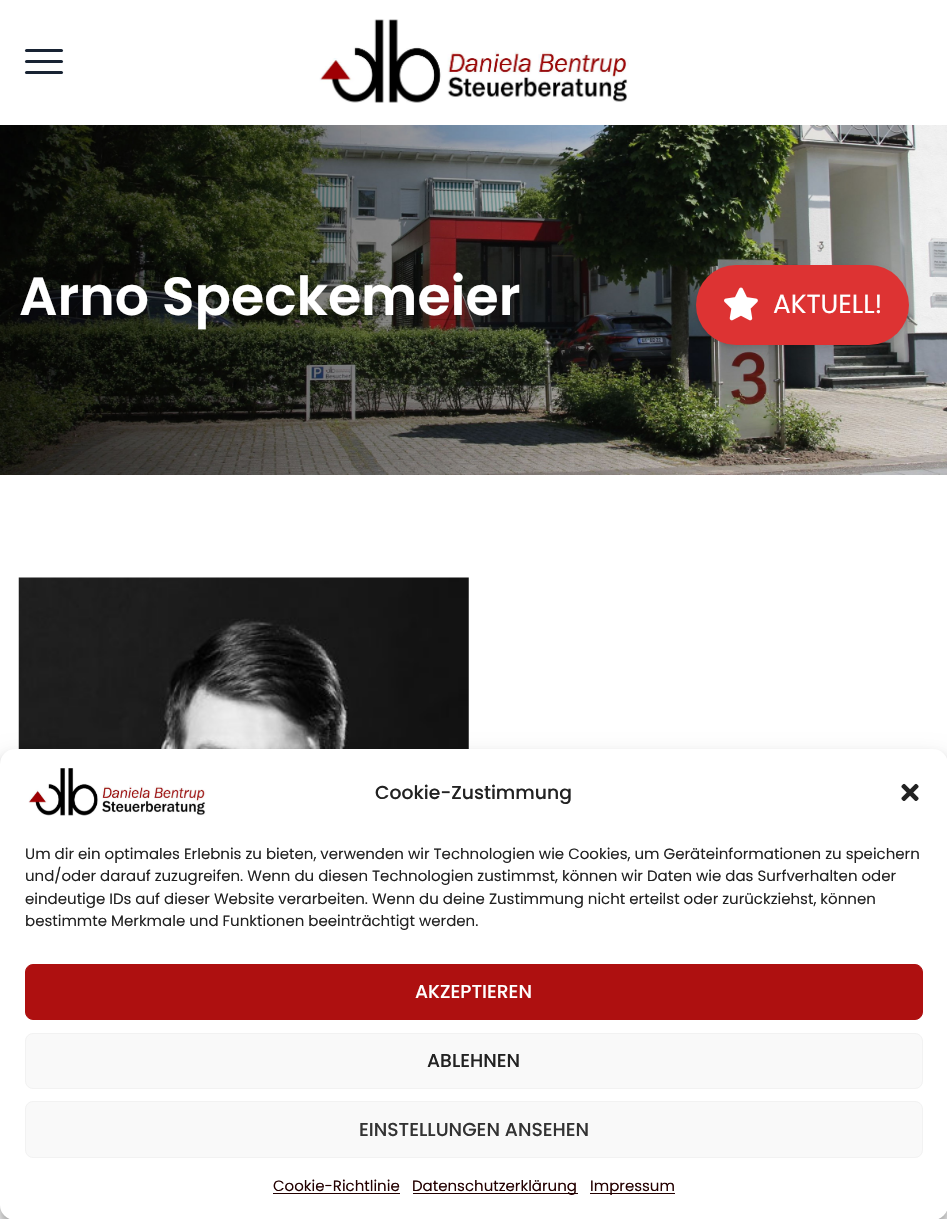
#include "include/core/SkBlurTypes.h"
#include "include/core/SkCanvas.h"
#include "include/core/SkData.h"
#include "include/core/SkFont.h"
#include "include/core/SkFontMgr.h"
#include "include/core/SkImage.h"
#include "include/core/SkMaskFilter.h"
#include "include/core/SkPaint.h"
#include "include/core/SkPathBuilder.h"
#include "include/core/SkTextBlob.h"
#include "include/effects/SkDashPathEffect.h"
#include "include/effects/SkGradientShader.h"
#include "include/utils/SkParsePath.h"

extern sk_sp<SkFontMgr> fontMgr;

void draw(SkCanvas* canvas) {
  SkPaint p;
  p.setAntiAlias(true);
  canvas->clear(SK_ColorWHITE);
  p.setColor(SkColorSetRGB(24, 35, 51));
  canvas->drawRoundRect(SkRect::MakeLTRB(25, 60, 63, 63), 1.5f, 1.5f, p);
  canvas->drawRoundRect(SkRect::MakeLTRB(25, 49, 63, 52), 1.5f, 1.5f, p);
  canvas->drawRoundRect(SkRect::MakeLTRB(25, 71, 63, 74), 1.5f, 1.5f, p);
  canvas->drawImageRect(SkImages::DeferredFromEncodedData(SkData::MakeFromFileName("images/1.png")), SkRect::MakeLTRB(319, 19, 629, 103), SkSamplingOptions());
  canvas->drawImageRect(SkImages::DeferredFromEncodedData(SkData::MakeFromFileName("images/2.png")), SkRect::MakeLTRB(0, 125, 947, 475), SkSamplingOptions());
  canvas->drawImageRect(SkImages::DeferredFromEncodedData(SkData::MakeFromFileName("images/3.png")), SkRect::MakeLTRB(18, 577, 469, 749), SkSamplingOptions());
  p.setColor(SkColorSetARGB(15, 0, 0, 0));
  p.setMaskFilter(SkMaskFilter::MakeBlur(kNormal_SkBlurStyle, 2.5f));
  canvas->drawRoundRect(SkRect::MakeLTRB(698, 269, 908, 346), 38.5f, 38.5f, p);
  p.setMaskFilter(nullptr);
  p.setColor(SkColorSetARGB(26, 0, 0, 0));
  p.setMaskFilter(SkMaskFilter::MakeBlur(kNormal_SkBlurStyle, 4));
  canvas->drawRoundRect(SkRect::MakeLTRB(698, 271, 908, 349), 39, 39, p);
  p.setMaskFilter(nullptr);
  p.setColor(SkColorSetRGB(221, 51, 51));
  canvas->drawRoundRect(SkRect::MakeLTRB(696, 265, 909, 345), 40, 40, p);
  canvas->drawImageRect(SkImages::DeferredFromEncodedData(SkData::MakeFromFileName("images/4.png")), SkRect::MakeLTRB(724, 287, 758, 321), SkSamplingOptions());
  p.setColor(SkColorSetARGB(59, 0, 0, 0));
  p.setMaskFilter(SkMaskFilter::MakeBlur(kNormal_SkBlurStyle, 4));
  canvas->drawRoundRect(SkRect::MakeLTRB(0, 756, 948, 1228), 15, 15, p);
  p.setMaskFilter(nullptr);
  p.setColor(SkColorSetARGB(48, 0, 0, 0));
  p.setMaskFilter(SkMaskFilter::MakeBlur(kNormal_SkBlurStyle, 12.5f));
  canvas->drawRoundRect(SkRect::MakeLTRB(0, 761, 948, 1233), 15, 15, p);
  p.setMaskFilter(nullptr);
  p.setColor(SK_ColorWHITE);
  canvas->drawRoundRect(SkRect::MakeLTRB(0, 749, 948, 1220), 15, 15, p);
  canvas->drawImageRect(SkImages::DeferredFromEncodedData(SkData::MakeFromFileName("images/5.png")), SkRect::MakeLTRB(28, 768, 206, 816), SkSamplingOptions());
  canvas->drawImageRect(SkImages::DeferredFromEncodedData(SkData::MakeFromFileName("images/6.png")), SkRect::MakeLTRB(901, 783, 919, 801), SkSamplingOptions());
  p.setColor(SkColorSetRGB(174, 16, 16));
  canvas->drawRoundRect(SkRect::MakeLTRB(25.5f, 964.5f, 922.5f, 1019.5f), 7.5f, 7.5f, p);
  p.setStyle(SkPaint::kStroke_Style);
  p.setStrokeWidth(1);
  canvas->drawRoundRect(SkRect::MakeLTRB(25.5f, 964.5f, 922.5f, 1019.5f), 7.5f, 7.5f, p);
  p.setStyle(SkPaint::kFill_Style);
  p.setColor(SkColorSetRGB(249, 249, 249));
  canvas->drawRoundRect(SkRect::MakeLTRB(25.5f, 1033.5f, 922.5f, 1088.5f), 7.5f, 7.5f, p);
  p.setStyle(SkPaint::kStroke_Style);
  p.setColor(SkColorSetRGB(242, 242, 242));
  canvas->drawRoundRect(SkRect::MakeLTRB(25.5f, 1033.5f, 922.5f, 1088.5f), 7.5f, 7.5f, p);
  p.setStyle(SkPaint::kFill_Style);
  p.setColor(SkColorSetRGB(249, 249, 249));
  canvas->drawRoundRect(SkRect::MakeLTRB(25.5f, 1101.5f, 922.5f, 1157.5f), 7.5f, 7.5f, p);
  p.setStyle(SkPaint::kStroke_Style);
  p.setColor(SkColorSetRGB(242, 242, 242));
  canvas->drawRoundRect(SkRect::MakeLTRB(25.5f, 1101.5f, 922.5f, 1157.5f), 7.5f, 7.5f, p);
  p.setStyle(SkPaint::kFill_Style);
  p.setColor(SkColorSetRGB(35, 0, 0));
  canvas->drawRect(SkRect::MakeLTRB(273, 1193, 400, 1194), p);
  canvas->drawRect(SkRect::MakeLTRB(413, 1193, 578, 1194), p);
  canvas->drawRect(SkRect::MakeLTRB(590, 1193, 675, 1194), p);
  SkFont font1(fontMgr->matchFamilyStyle("Poppins", SkFontStyle(600, SkFontStyle::kNormal_Width, SkFontStyle::kUpright_Slant)), 53.75f);
  font1.setSubpixel(true);
  p.setColor(SK_ColorWHITE);
  canvas->drawString("Arno Speckemeier", 19, 315, font1, p);
  SkFont font2(fontMgr->matchFamilyStyle("Poppins", SkFontStyle::Normal()), 26.25f);
  font2.setSubpixel(true);
  canvas->drawString("AKTUELL!", 773, 313, font2, p);
  SkFont font3(fontMgr->matchFamilyStyle("Poppins", SkFontStyle(500, SkFontStyle::kNormal_Width, SkFontStyle::kUpright_Slant)), 18.75f);
  font3.setSubpixel(true);
  p.setColor(SkColorSetRGB(34, 34, 34));
  canvas->drawString("Cookie-Zustimmung", 375, 799, font3, p);
  SkFont font4(fontMgr->matchFamilyStyle("Poppins", SkFontStyle::Normal()), 15);
  font4.setSubpixel(true);
  canvas->drawString("Um dir ein optimales Erlebnis zu bieten, verwenden wir Technologien wie Cookies, um Geräteinformationen zu speichern", 25, 859, font4, p);
  canvas->drawString("und/oder darauf zuzugreifen. Wenn du diesen Technologien zustimmst, können wir Daten wie das Surfverhalten oder", 25, 881, font4, p);
  canvas->drawString("eindeutige IDs auf dieser Website verarbeiten. Wenn du deine Zustimmung nicht erteilst oder zurückziehst, können", 25, 904, font4, p);
  canvas->drawString("bestimmte Merkmale und Funktionen beeinträchtigt werden.", 25, 926, font4, p);
  p.setColor(SK_ColorWHITE);
  canvas->drawString("AKZEPTIEREN", 415, 998, font3, p);
  p.setColor(SkColorSetRGB(34, 34, 34));
  canvas->drawString("ABLEHNEN", 427, 1067, font3, p);
  p.setColor(SkColorSetRGB(51, 51, 51));
  canvas->drawString("EINSTELLUNGEN ANSEHEN", 359, 1136, font3, p);
  p.setColor(SkColorSetRGB(35, 0, 0));
  canvas->drawString("Cookie-Richtlinie", 273, 1191, font4, p);
  canvas->drawString("Datenschutzerklärung", 412, 1191, font4, p);
  canvas->drawString("Impressum", 590, 1191, font4, p);
}
